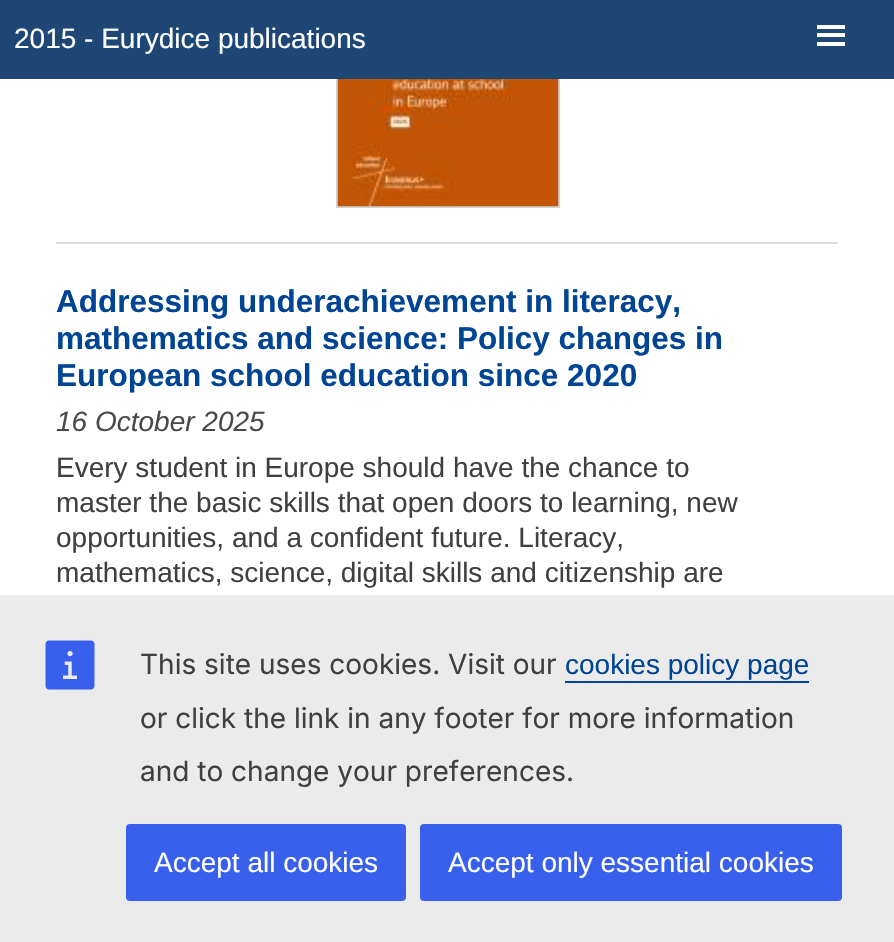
#include "include/core/SkBlurTypes.h"
#include "include/core/SkCanvas.h"
#include "include/core/SkData.h"
#include "include/core/SkFont.h"
#include "include/core/SkFontMgr.h"
#include "include/core/SkImage.h"
#include "include/core/SkMaskFilter.h"
#include "include/core/SkPaint.h"
#include "include/core/SkPathBuilder.h"
#include "include/core/SkTextBlob.h"
#include "include/effects/SkDashPathEffect.h"
#include "include/effects/SkGradientShader.h"
#include "include/utils/SkParsePath.h"

extern sk_sp<SkFontMgr> fontMgr;

void draw(SkCanvas* canvas) {
  SkPaint p;
  p.setAntiAlias(true);
  canvas->clear(SK_ColorWHITE);
  p.setStyle(SkPaint::kStroke_Style);
  p.setStrokeWidth(2);
  p.setColor(SkColorSetRGB(211, 211, 211));
  canvas->drawRect(SkRect::MakeLTRB(337, -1, 559, 207), p);
  p.setStyle(SkPaint::kFill_Style);
  p.setColor(SkColorSetRGB(30, 71, 118));
  canvas->drawRect(SkRect::MakeLTRB(0, 0, 894, 79), p);
  p.setColor(SK_ColorWHITE);
  canvas->drawRect(SkRect::MakeLTRB(817, 25, 845, 29), p);
  canvas->drawRect(SkRect::MakeLTRB(817, 33, 845, 37), p);
  canvas->drawRect(SkRect::MakeLTRB(817, 42, 845, 46), p);
  canvas->drawImageRect(SkImages::DeferredFromEncodedData(SkData::MakeFromFileName("images/1.png")), SkRect::MakeLTRB(337, 79, 559, 207), SkSamplingOptions());
  p.setColor(SkColorSetRGB(219, 219, 219));
  canvas->drawRect(SkRect::MakeLTRB(56, 242, 838, 244), p);
  p.setColor(SkColorSetRGB(235, 235, 235));
  canvas->drawRect(SkRect::MakeLTRB(0, 595, 894, 942), p);
  canvas->drawImageRect(SkImages::DeferredFromEncodedData(SkData::MakeFromFileName("images/2.png")), SkRect::MakeLTRB(45, 640, 95, 690), SkSamplingOptions());
  p.setColor(SkColorSetRGB(0, 68, 148));
  canvas->drawRect(SkRect::MakeLTRB(565, 681, 809, 683), p);
  p.setColor(SkColorSetRGB(56, 96, 237));
  canvas->drawRoundRect(SkRect::MakeLTRB(126, 824, 406, 901), 4, 4, p);
  canvas->drawRoundRect(SkRect::MakeLTRB(420, 824, 842, 901), 4, 4, p);
  SkFont font1(fontMgr->matchFamilyStyle("Liberation Sans", SkFontStyle::Normal()), 28);
  font1.setSubpixel(true);
  p.setColor(SK_ColorWHITE);
  canvas->drawString("2015 - Eurydice publications", 14, 48, font1, p);
  SkFont font2(fontMgr->matchFamilyStyle("Liberation Sans", SkFontStyle::Bold()), 31.5f);
  font2.setSubpixel(true);
  p.setColor(SkColorSetRGB(0, 68, 148));
  canvas->drawString("Addressing underachievement in literacy,", 56, 312, font2, p);
  canvas->drawString("mathematics and science: Policy changes in", 56, 349, font2, p);
  canvas->drawString("European school education since 2020", 56, 386, font2, p);
  SkFont font3(fontMgr->matchFamilyStyle("Liberation Sans", SkFontStyle::Italic()), 28);
  font3.setSubpixel(true);
  p.setColor(SkColorSetRGB(74, 74, 74));
  canvas->drawString("16 October 2025", 56, 431, font3, p);
  p.setColor(SkColorSetRGB(64, 64, 64));
  canvas->drawString("Every student in Europe should have the chance to", 56, 477, font1, p);
  canvas->drawString("master the basic skills that open doors to learning, new", 56, 512, font1, p);
  canvas->drawString("opportunities, and a confident future. Literacy,", 56, 547, font1, p);
  canvas->drawString("mathematics, science, digital skills and citizenship are", 56, 582, font1, p);
  SkFont font4(fontMgr->matchFamilyStyle("Inter", SkFontStyle::Normal()), 28);
  font4.setSubpixel(true);
  canvas->drawString("This site uses cookies. Visit our", 140, 674, font4, p);
  p.setColor(SkColorSetRGB(0, 68, 148));
  canvas->drawString("cookies policy page", 565, 674, font1, p);
  p.setColor(SkColorSetRGB(64, 64, 64));
  canvas->drawString("or click the link in any footer for more information", 140, 728, font4, p);
  canvas->drawString("and to change your preferences.", 140, 781, font4, p);
  p.setColor(SK_ColorWHITE);
  canvas->drawString("Accept all cookies", 154, 872, font1, p);
  canvas->drawString("Accept only essential cookies", 448, 872, font1, p);
}
